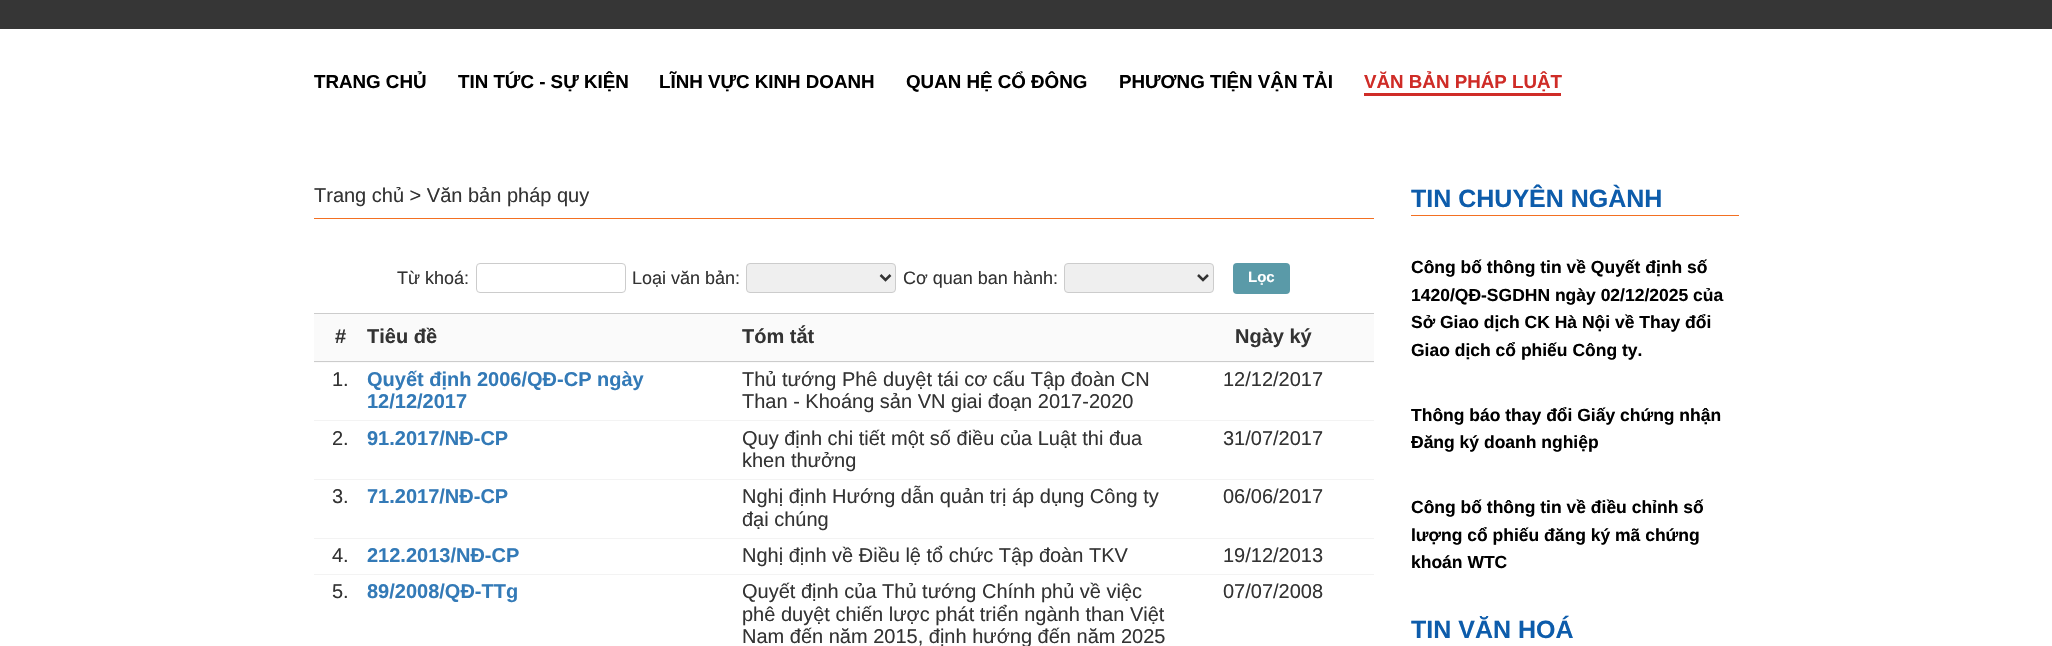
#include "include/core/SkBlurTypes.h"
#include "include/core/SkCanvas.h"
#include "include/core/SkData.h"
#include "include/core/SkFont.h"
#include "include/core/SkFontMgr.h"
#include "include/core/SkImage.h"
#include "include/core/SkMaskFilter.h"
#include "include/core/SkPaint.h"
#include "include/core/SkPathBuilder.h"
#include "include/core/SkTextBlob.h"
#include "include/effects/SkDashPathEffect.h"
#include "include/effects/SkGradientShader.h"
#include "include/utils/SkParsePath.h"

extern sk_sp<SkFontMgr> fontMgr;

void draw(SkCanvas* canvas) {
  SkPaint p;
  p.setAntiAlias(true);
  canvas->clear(SK_ColorWHITE);
  p.setColor(SkColorSetRGB(54, 54, 54));
  canvas->drawRect(SkRect::MakeLTRB(0, 0, 2052, 29), p);
  p.setColor(SkColorSetRGB(207, 44, 39));
  canvas->drawRect(SkRect::MakeLTRB(1364, 93, 1561, 96), p);
  p.setColor(SkColorSetRGB(243, 112, 34));
  canvas->drawRect(SkRect::MakeLTRB(314, 218, 1374, 219), p);
  p.setStyle(SkPaint::kStroke_Style);
  p.setStrokeWidth(1);
  p.setColor(SkColorSetRGB(204, 204, 204));
  canvas->drawRoundRect(SkRect::MakeLTRB(476.5f, 263.5f, 625.5f, 292.5f), 3.5f, 3.5f, p);
  p.setStyle(SkPaint::kFill_Style);
  p.setColor(SkColorSetRGB(239, 239, 239));
  canvas->drawRoundRect(SkRect::MakeLTRB(746.5f, 263.5f, 895.5f, 292.5f), 3.5f, 3.5f, p);
  p.setStyle(SkPaint::kStroke_Style);
  p.setColor(SkColorSetRGB(204, 204, 204));
  canvas->drawRoundRect(SkRect::MakeLTRB(746.5f, 263.5f, 895.5f, 292.5f), 3.5f, 3.5f, p);
  p.setStrokeWidth(2.5f);
  p.setColor(SkColorSetRGB(51, 51, 51));
  canvas->drawPath(SkPathBuilder().moveTo(880.5f, 275).lineTo(885.5f, 280).lineTo(890.5f, 275).detach(), p);
  p.setStyle(SkPaint::kFill_Style);
  p.setColor(SkColorSetRGB(239, 239, 239));
  canvas->drawRoundRect(SkRect::MakeLTRB(1064.5f, 263.5f, 1213.5f, 292.5f), 3.5f, 3.5f, p);
  p.setStyle(SkPaint::kStroke_Style);
  p.setStrokeWidth(1);
  p.setColor(SkColorSetRGB(204, 204, 204));
  canvas->drawRoundRect(SkRect::MakeLTRB(1064.5f, 263.5f, 1213.5f, 292.5f), 3.5f, 3.5f, p);
  p.setStrokeWidth(2.5f);
  p.setColor(SkColorSetRGB(51, 51, 51));
  canvas->drawPath(SkPathBuilder().moveTo(1198, 275).lineTo(1203, 280).lineTo(1208, 275).detach(), p);
  p.setStyle(SkPaint::kFill_Style);
  p.setColor(SkColorSetRGB(90, 154, 168));
  canvas->drawRoundRect(SkRect::MakeLTRB(1233, 263, 1290, 294), 4, 4, p);
  p.setColor(SkColorSetRGB(250, 250, 250));
  canvas->drawRect(SkRect::MakeLTRB(314, 314, 1374, 363), p);
  p.setColor(SkColorSetRGB(204, 204, 204));
  canvas->drawRect(SkRect::MakeLTRB(314, 313, 1374, 314), p);
  canvas->drawRect(SkRect::MakeLTRB(314, 361, 1374, 362), p);
  p.setColor(SkColorSetRGB(243, 243, 243));
  canvas->drawRect(SkRect::MakeLTRB(314, 420, 1374, 421), p);
  canvas->drawRect(SkRect::MakeLTRB(314, 479, 1374, 480), p);
  canvas->drawRect(SkRect::MakeLTRB(314, 538, 1374, 539), p);
  canvas->drawRect(SkRect::MakeLTRB(314, 574, 1374, 575), p);
  p.setColor(SkColorSetRGB(243, 112, 34));
  canvas->drawRect(SkRect::MakeLTRB(1411, 215, 1739, 216), p);
  SkFont font1(fontMgr->matchFamilyStyle("Liberation Sans", SkFontStyle::Bold()), 18.75f);
  font1.setSubpixel(true);
  p.setColor(SK_ColorBLACK);
  canvas->drawString("TRANG CHỦ", 314, 88, font1, p);
  canvas->drawString("TIN TỨC - SỰ KIỆN", 458, 88, font1, p);
  canvas->drawString("LĨNH VỰC KINH DOANH", 659, 88, font1, p);
  canvas->drawString("QUAN HỆ CỔ ĐÔNG", 906, 88, font1, p);
  canvas->drawString("PHƯƠNG TIỆN VẬN TẢI", 1119, 88, font1, p);
  p.setColor(SkColorSetRGB(207, 44, 39));
  canvas->drawString("VĂN BẢN PHÁP LUẬT", 1364, 88, font1, p);
  SkFont font2(fontMgr->matchFamilyStyle("Liberation Sans", SkFontStyle::Normal()), 20);
  font2.setSubpixel(true);
  p.setColor(SkColorSetRGB(51, 51, 51));
  canvas->drawString("Trang chủ > Văn bản pháp quy", 314, 202, font2, p);
  SkFont font3(fontMgr->matchFamilyStyle("Liberation Sans", SkFontStyle::Normal()), 18);
  font3.setSubpixel(true);
  canvas->drawString("Từ khoá:", 397, 284, font3, p);
  canvas->drawString("Loại văn bản:", 632, 284, font3, p);
  canvas->drawString("Cơ quan ban hành:", 903, 284, font3, p);
  SkFont font4(fontMgr->matchFamilyStyle("Liberation Sans", SkFontStyle::Bold()), 15);
  font4.setSubpixel(true);
  p.setColor(SK_ColorWHITE);
  canvas->drawString("Lọc", 1248, 282, font4, p);
  SkFont font5(fontMgr->matchFamilyStyle("Liberation Sans", SkFontStyle::Bold()), 20);
  font5.setSubpixel(true);
  p.setColor(SkColorSetRGB(51, 51, 51));
  canvas->drawString("#", 335, 343, font5, p);
  canvas->drawString("Tiêu đề", 367, 343, font5, p);
  canvas->drawString("Tóm tắt", 742, 343, font5, p);
  canvas->drawString("Ngày ký", 1235, 343, font5, p);
  canvas->drawString("1.", 332, 386, font2, p);
  p.setColor(SkColorSetRGB(51, 122, 183));
  canvas->drawString("Quyết định 2006/QĐ-CP ngày", 367, 386, font5, p);
  canvas->drawString("12/12/2017", 367, 408, font5, p);
  p.setColor(SkColorSetRGB(51, 51, 51));
  canvas->drawString("Thủ tướng Phê duyệt tái cơ cấu Tập đoàn CN", 742, 386, font2, p);
  canvas->drawString("Than - Khoáng sản VN giai đoạn 2017-2020", 742, 408, font2, p);
  canvas->drawString("12/12/2017", 1223, 386, font2, p);
  canvas->drawString("2.", 332, 445, font2, p);
  p.setColor(SkColorSetRGB(51, 122, 183));
  canvas->drawString("91.2017/NĐ-CP", 367, 445, font5, p);
  p.setColor(SkColorSetRGB(51, 51, 51));
  canvas->drawString("Quy định chi tiết một số điều của Luật thi đua", 742, 445, font2, p);
  canvas->drawString("khen thưởng", 742, 467, font2, p);
  canvas->drawString("31/07/2017", 1223, 445, font2, p);
  canvas->drawString("3.", 332, 503, font2, p);
  p.setColor(SkColorSetRGB(51, 122, 183));
  canvas->drawString("71.2017/NĐ-CP", 367, 503, font5, p);
  p.setColor(SkColorSetRGB(51, 51, 51));
  canvas->drawString("Nghị định Hướng dẫn quản trị áp dụng Công ty", 742, 503, font2, p);
  canvas->drawString("đại chúng", 742, 526, font2, p);
  canvas->drawString("06/06/2017", 1223, 503, font2, p);
  canvas->drawString("4.", 332, 562, font2, p);
  p.setColor(SkColorSetRGB(51, 122, 183));
  canvas->drawString("212.2013/NĐ-CP", 367, 562, font5, p);
  p.setColor(SkColorSetRGB(51, 51, 51));
  canvas->drawString("Nghị định về Điều lệ tổ chức Tập đoàn TKV", 742, 562, font2, p);
  canvas->drawString("19/12/2013", 1223, 562, font2, p);
  canvas->drawString("5.", 332, 598, font2, p);
  p.setColor(SkColorSetRGB(51, 122, 183));
  canvas->drawString("89/2008/QĐ-TTg", 367, 598, font5, p);
  p.setColor(SkColorSetRGB(51, 51, 51));
  canvas->drawString("Quyết định của Thủ tướng Chính phủ về việc", 742, 598, font2, p);
  canvas->drawString("phê duyệt chiến lược phát triển ngành than Việt", 742, 621, font2, p);
  canvas->drawString("Nam đến năm 2015, định hướng đến năm 2025", 742, 643, font2, p);
  canvas->drawString("07/07/2008", 1223, 598, font2, p);
  SkFont font6(fontMgr->matchFamilyStyle("Liberation Sans", SkFontStyle::Bold()), 25);
  font6.setSubpixel(true);
  p.setColor(SkColorSetRGB(13, 92, 171));
  canvas->drawString("TIN CHUYÊN NGÀNH", 1411, 207, font6, p);
  SkFont font7(fontMgr->matchFamilyStyle("Liberation Sans", SkFontStyle::Bold()), 17.5f);
  font7.setSubpixel(true);
  p.setColor(SK_ColorBLACK);
  canvas->drawString("Công bố thông tin về Quyết định số", 1411, 273, font7, p);
  canvas->drawString("1420/QĐ-SGDHN ngày 02/12/2025 của", 1411, 301, font7, p);
  canvas->drawString("Sở Giao dịch CK Hà Nội về Thay đổi", 1411, 328, font7, p);
  canvas->drawString("Giao dịch cổ phiếu Công ty.", 1411, 356, font7, p);
  canvas->drawString("Thông báo thay đổi Giấy chứng nhận", 1411, 421, font7, p);
  canvas->drawString("Đăng ký doanh nghiệp", 1411, 448, font7, p);
  canvas->drawString("Công bố thông tin về điều chỉnh số", 1411, 513, font7, p);
  canvas->drawString("lượng cổ phiếu đăng ký mã chứng", 1411, 541, font7, p);
  canvas->drawString("khoán WTC", 1411, 568, font7, p);
  p.setColor(SkColorSetRGB(13, 92, 171));
  canvas->drawString("TIN VĂN HOÁ", 1411, 638, font6, p);
}
